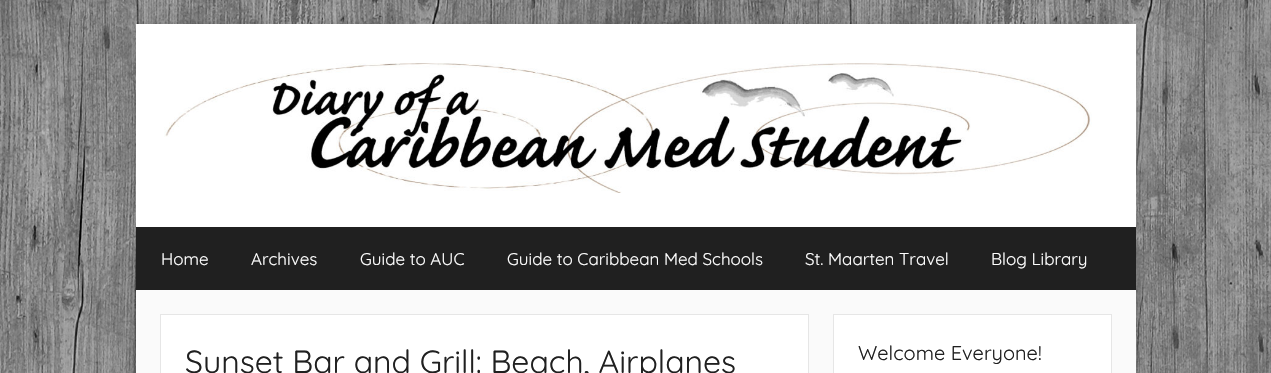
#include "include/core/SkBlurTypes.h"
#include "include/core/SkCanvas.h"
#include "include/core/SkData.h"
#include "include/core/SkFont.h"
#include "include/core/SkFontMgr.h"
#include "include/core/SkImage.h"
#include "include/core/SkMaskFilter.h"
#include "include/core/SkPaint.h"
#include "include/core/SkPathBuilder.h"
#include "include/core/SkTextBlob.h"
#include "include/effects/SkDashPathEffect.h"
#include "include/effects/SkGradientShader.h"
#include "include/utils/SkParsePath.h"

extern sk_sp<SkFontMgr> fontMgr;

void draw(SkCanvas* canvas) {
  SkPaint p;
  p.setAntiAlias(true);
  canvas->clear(SK_ColorWHITE);
  canvas->drawImageRect(SkImages::DeferredFromEncodedData(SkData::MakeFromFileName("images/1.png")), SkRect::MakeLTRB(0, 0, 1271, 373), SkSamplingOptions());
  p.setColor(SkColorSetARGB(38, 0, 0, 0));
  p.setMaskFilter(SkMaskFilter::MakeBlur(kNormal_SkBlurStyle, 5));
  canvas->drawRect(SkRect::MakeLTRB(136, 24, 1136, 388), p);
  p.setMaskFilter(nullptr);
  p.setColor(SkColorSetRGB(250, 250, 250));
  canvas->drawRect(SkRect::MakeLTRB(136, 290, 1136, 373), p);
  p.setColor(SK_ColorWHITE);
  canvas->drawRect(SkRect::MakeLTRB(136, 24, 1136, 227), p);
  canvas->drawImageRect(SkImages::DeferredFromEncodedData(SkData::MakeFromFileName("images/2.png")), SkRect::MakeLTRB(164, 63, 1092, 193), SkSamplingOptions());
  p.setColor(SkColorSetRGB(32, 32, 32));
  canvas->drawRect(SkRect::MakeLTRB(136, 227, 1136, 290), p);
  p.setColor(SK_ColorWHITE);
  canvas->drawRect(SkRect::MakeLTRB(160.5f, 314.5f, 808.5f, 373.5f), p);
  p.setStyle(SkPaint::kStroke_Style);
  p.setStrokeWidth(1);
  p.setColor(SkColorSetRGB(230, 230, 230));
  canvas->drawRect(SkRect::MakeLTRB(160.5f, 314.5f, 808.5f, 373.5f), p);
  p.setStyle(SkPaint::kFill_Style);
  p.setColor(SK_ColorWHITE);
  canvas->drawRect(SkRect::MakeLTRB(833.5f, 314.5f, 1111.5f, 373.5f), p);
  p.setStyle(SkPaint::kStroke_Style);
  p.setColor(SkColorSetRGB(230, 230, 230));
  canvas->drawRect(SkRect::MakeLTRB(833.5f, 314.5f, 1111.5f, 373.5f), p);
  SkFont font1(fontMgr->matchFamilyStyle("Quicksand", SkFontStyle::Normal()), 17);
  font1.setSubpixel(true);
  p.setStyle(SkPaint::kFill_Style);
  p.setColor(SK_ColorWHITE);
  canvas->drawString("Home", 161, 265, font1, p);
  canvas->drawString("Archives", 251, 265, font1, p);
  canvas->drawString("Guide to AUC", 360, 265, font1, p);
  canvas->drawString("Guide to Caribbean Med Schools", 507, 265, font1, p);
  canvas->drawString("St. Maarten Travel", 805, 265, font1, p);
  canvas->drawString("Blog Library", 991, 265, font1, p);
  SkFont font2(fontMgr->matchFamilyStyle("Quicksand", SkFontStyle::Normal()), 32);
  font2.setSubpixel(true);
  p.setColor(SkColorSetRGB(32, 32, 32));
  canvas->drawString("Sunset Bar and Grill: Beach, Airplanes", 185, 373, font2, p);
  SkFont font3(fontMgr->matchFamilyStyle("Quicksand", SkFontStyle::Normal()), 20);
  font3.setSubpixel(true);
  canvas->drawString("Welcome Everyone!", 858, 360, font3, p);
}
